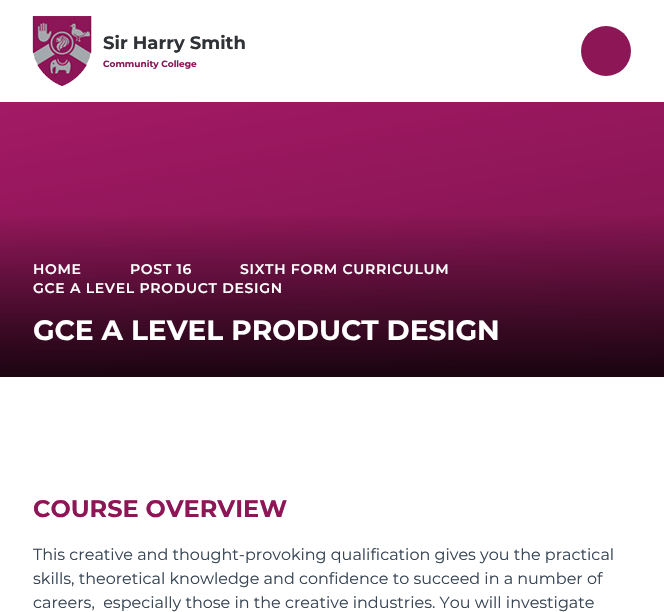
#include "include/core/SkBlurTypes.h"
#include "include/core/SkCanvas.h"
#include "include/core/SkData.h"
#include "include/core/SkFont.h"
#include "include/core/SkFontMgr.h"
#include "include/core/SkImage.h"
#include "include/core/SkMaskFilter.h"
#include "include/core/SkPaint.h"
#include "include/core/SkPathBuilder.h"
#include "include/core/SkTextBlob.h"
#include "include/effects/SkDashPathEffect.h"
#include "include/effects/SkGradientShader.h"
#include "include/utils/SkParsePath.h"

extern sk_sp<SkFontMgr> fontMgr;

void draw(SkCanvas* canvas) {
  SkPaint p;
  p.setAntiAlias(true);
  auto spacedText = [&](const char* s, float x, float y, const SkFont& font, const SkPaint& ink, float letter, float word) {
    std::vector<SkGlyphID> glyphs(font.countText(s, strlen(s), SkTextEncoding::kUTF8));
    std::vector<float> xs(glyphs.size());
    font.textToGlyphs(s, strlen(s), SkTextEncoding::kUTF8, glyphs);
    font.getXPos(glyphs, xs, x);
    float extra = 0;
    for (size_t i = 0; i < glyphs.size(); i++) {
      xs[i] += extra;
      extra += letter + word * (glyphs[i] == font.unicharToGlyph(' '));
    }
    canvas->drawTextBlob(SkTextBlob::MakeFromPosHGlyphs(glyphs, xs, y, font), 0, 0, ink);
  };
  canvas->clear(SK_ColorWHITE);
  canvas->drawImageRect(SkImages::DeferredFromEncodedData(SkData::MakeFromFileName("images/1.png")), SkRect::MakeLTRB(32, 16, 92, 86), SkSamplingOptions());
  p.setColor(SkColorSetRGB(141, 22, 87));
  canvas->drawCircle(606, 51, 25, p);
  {
    const SkColor colors[] = {SkColorSetRGB(163, 25, 101), SkColorSetRGB(119, 19, 73)};
    const float stops[] = {0, 1};
    const SkPoint ends[] = {{298, 49}, {366, 430}};
    p.setShader(SkGradientShader::MakeLinear(ends, colors, stops, 2, SkTileMode::kClamp));
    p.setAlpha(255);
  }
  canvas->drawRect(SkRect::MakeLTRB(0, 102, 664, 377), p);
  {
    const SkColor colors[] = {SkColorSetARGB(204, 0, 0, 0), SkColorSetARGB(0, 0, 0, 0)};
    const float stops[] = {0, 1};
    const SkPoint ends[] = {{332, 377}, {332, 212}};
    p.setShader(SkGradientShader::MakeLinear(ends, colors, stops, 2, SkTileMode::kClamp));
    p.setAlpha(255);
  }
  canvas->drawRect(SkRect::MakeLTRB(0, 216, 664, 377), p);
  SkFont font1(fontMgr->matchFamilyStyle("Montserrat", SkFontStyle::Bold()), 18);
  font1.setSubpixel(true);
  p.setShader(nullptr);
  p.setColor(SkColorSetRGB(47, 50, 54));
  canvas->drawString("Sir Harry Smith", 103, 49, font1, p);
  SkFont font2(fontMgr->matchFamilyStyle("Montserrat", SkFontStyle::Bold()), 9);
  font2.setSubpixel(true);
  p.setColor(SkColorSetRGB(141, 22, 87));
  canvas->drawString("Community College", 103, 67, font2, p);
  SkFont font3(fontMgr->matchFamilyStyle("Montserrat", SkFontStyle(600, SkFontStyle::kNormal_Width, SkFontStyle::kUpright_Slant)), 14);
  font3.setSubpixel(true);
  p.setColor(SK_ColorWHITE);
  spacedText("HOME", 33, 274, font3, p, 0.7f, 0);
  spacedText("POST 16", 130, 274, font3, p, 0.7f, 0);
  spacedText("SIXTH FORM CURRICULUM", 240, 274, font3, p, 0.7f, 0);
  spacedText("GCE A LEVEL PRODUCT DESIGN", 33, 293, font3, p, 0.7f, 0);
  SkFont font4(fontMgr->matchFamilyStyle("Montserrat", SkFontStyle::Bold()), 28);
  font4.setSubpixel(true);
  canvas->drawString("GCE A LEVEL PRODUCT DESIGN", 33, 340, font4, p);
  SkFont font5(fontMgr->matchFamilyStyle("Montserrat", SkFontStyle::Bold()), 24);
  font5.setSubpixel(true);
  p.setColor(SkColorSetRGB(141, 22, 87));
  canvas->drawString("COURSE OVERVIEW", 33, 517, font5, p);
  SkFont font6(fontMgr->matchFamilyStyle("Montserrat", SkFontStyle::Normal()), 16);
  font6.setSubpixel(true);
  p.setColor(SkColorSetRGB(55, 69, 85));
  canvas->drawString("This creative and thought-provoking qualification gives you the practical", 33, 560, font6, p);
  canvas->drawString("skills, theoretical knowledge and confidence to succeed in a number of", 33, 584, font6, p);
  canvas->drawString("careers,  especially those in the creative industries. You will investigate", 33, 608, font6, p);
}
